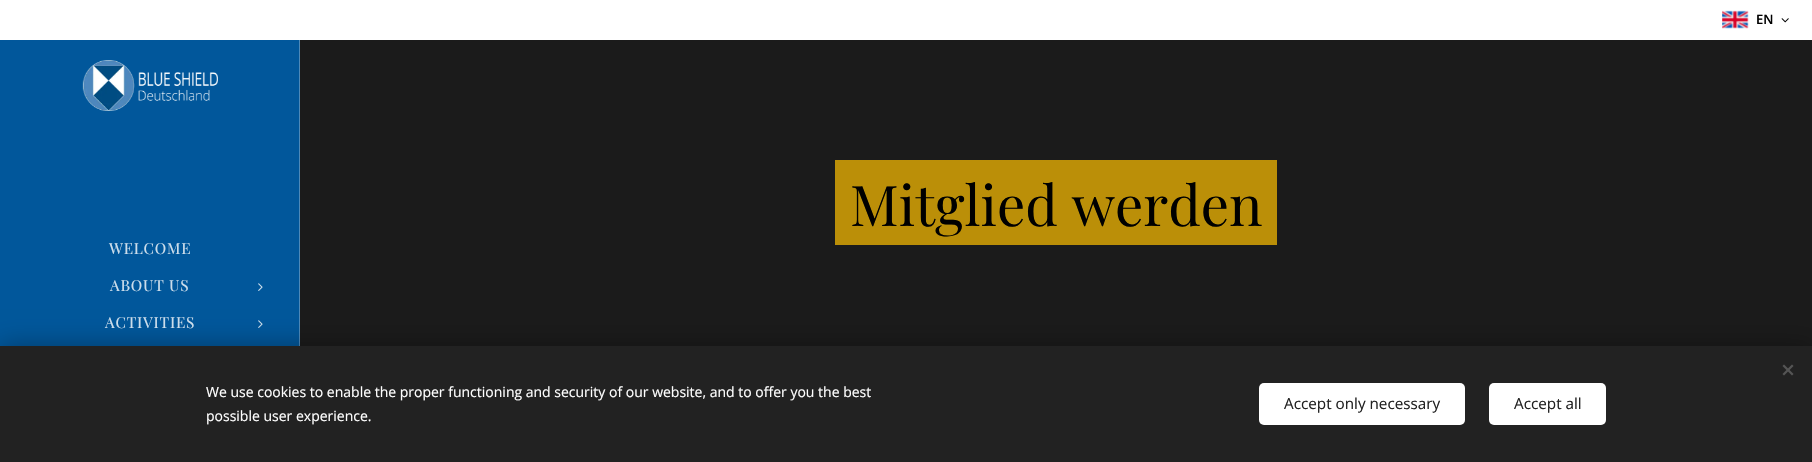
#include "include/core/SkBlurTypes.h"
#include "include/core/SkCanvas.h"
#include "include/core/SkData.h"
#include "include/core/SkFont.h"
#include "include/core/SkFontMgr.h"
#include "include/core/SkImage.h"
#include "include/core/SkMaskFilter.h"
#include "include/core/SkPaint.h"
#include "include/core/SkPathBuilder.h"
#include "include/core/SkTextBlob.h"
#include "include/effects/SkDashPathEffect.h"
#include "include/effects/SkGradientShader.h"
#include "include/utils/SkParsePath.h"

extern sk_sp<SkFontMgr> fontMgr;

void draw(SkCanvas* canvas) {
  SkPaint p;
  p.setAntiAlias(true);
  auto spacedText = [&](const char* s, float x, float y, const SkFont& font, const SkPaint& ink, float letter, float word) {
    std::vector<SkGlyphID> glyphs(font.countText(s, strlen(s), SkTextEncoding::kUTF8));
    std::vector<float> xs(glyphs.size());
    font.textToGlyphs(s, strlen(s), SkTextEncoding::kUTF8, glyphs);
    font.getXPos(glyphs, xs, x);
    float extra = 0;
    for (size_t i = 0; i < glyphs.size(); i++) {
      xs[i] += extra;
      extra += letter + word * (glyphs[i] == font.unicharToGlyph(' '));
    }
    canvas->drawTextBlob(SkTextBlob::MakeFromPosHGlyphs(glyphs, xs, y, font), 0, 0, ink);
  };
  canvas->clear(SK_ColorWHITE);
  canvas->drawImageRect(SkImages::DeferredFromEncodedData(SkData::MakeFromFileName("images/1.png")), SkRect::MakeLTRB(1722, 10, 1749, 29), SkSamplingOptions());
  canvas->drawImageRect(SkImages::DeferredFromEncodedData(SkData::MakeFromFileName("images/2.png")), SkRect::MakeLTRB(1781, 18, 1789, 23), SkSamplingOptions());
  p.setColor(SkColorSetRGB(1, 87, 155));
  canvas->drawRect(SkRect::MakeLTRB(0, 40, 299, 346), p);
  canvas->drawImageRect(SkImages::DeferredFromEncodedData(SkData::MakeFromFileName("images/3.png")), SkRect::MakeLTRB(82, 60, 218, 111), SkSamplingOptions());
  canvas->drawImageRect(SkImages::DeferredFromEncodedData(SkData::MakeFromFileName("images/4.png")), SkRect::MakeLTRB(258, 283, 263, 291), SkSamplingOptions());
  canvas->drawImageRect(SkImages::DeferredFromEncodedData(SkData::MakeFromFileName("images/4.png")), SkRect::MakeLTRB(258, 320, 263, 328), SkSamplingOptions());
  p.setColor(SkColorSetRGB(77, 137, 185));
  canvas->drawRect(SkRect::MakeLTRB(299, 40, 300, 346), p);
  p.setColor(SkColorSetRGB(27, 27, 27));
  canvas->drawRect(SkRect::MakeLTRB(300, 40, 1812, 346), p);
  p.setColor(SkColorSetRGB(187, 143, 8));
  canvas->drawRect(SkRect::MakeLTRB(835, 160, 850, 245), p);
  canvas->drawRect(SkRect::MakeLTRB(850, 160, 1277, 245), p);
  p.setColor(SkColorSetARGB(84, 0, 0, 0));
  p.setMaskFilter(SkMaskFilter::MakeBlur(kNormal_SkBlurStyle, 12.5f));
  canvas->drawRect(SkRect::MakeLTRB(0, 346, 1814, 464), p);
  p.setMaskFilter(nullptr);
  p.setColor(SkColorSetRGB(34, 34, 34));
  canvas->drawRect(SkRect::MakeLTRB(0, 346, 1812, 462), p);
  p.setColor(SkColorSetRGB(85, 85, 85));
  canvas->drawPath(SkPathBuilder().moveTo(1782.5f, 374).lineTo(1792, 364.5f).lineTo(1793.5f, 366).lineTo(1784, 375.5f).close().detach(), p);
  canvas->drawPath(SkPathBuilder().moveTo(1784, 364.5f).lineTo(1793.5f, 374).lineTo(1792, 375.5f).lineTo(1782.5f, 366).close().detach(), p);
  p.setColor(SK_ColorWHITE);
  canvas->drawRoundRect(SkRect::MakeLTRB(1259, 383, 1465, 425), 5, 5, p);
  canvas->drawRoundRect(SkRect::MakeLTRB(1489, 383, 1606, 425), 5, 5, p);
  SkFont font1(fontMgr->matchFamilyStyle("Open Sans", SkFontStyle(600, SkFontStyle::kNormal_Width, SkFontStyle::kUpright_Slant)), 13);
  font1.setSubpixel(true);
  p.setColor(SK_ColorBLACK);
  canvas->drawString("EN", 1756, 24, font1, p);
  SkFont font2(fontMgr->matchFamilyStyle("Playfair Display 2", SkFontStyle::Normal()), 15.25f);
  font2.setSubpixel(true);
  p.setColor(SkColorSetRGB(204, 221, 235));
  spacedText("WELCOME", 109, 254, font2, p, 0.75f, 0);
  spacedText("ABOUT US", 110, 291, font2, p, 0.75f, 0);
  spacedText("ACTIVITIES", 105, 328, font2, p, 0.75f, 0);
  SkFont font3(fontMgr->matchFamilyStyle("Playfair Display", SkFontStyle::Normal()), 56);
  font3.setSubpixel(true);
  p.setColor(SK_ColorBLACK);
  canvas->drawString("Mitglied werden", 850, 226, font3, p);
  SkFont font4(fontMgr->matchFamilyStyle("Open Sans", SkFontStyle::Normal()), 14);
  font4.setSubpixel(true);
  p.setColor(SK_ColorWHITE);
  canvas->drawString("We use cookies to enable the proper functioning and security of our website, and to offer you the best", 206, 397, font4, p);
  canvas->drawString("possible user experience.", 206, 421, font4, p);
  SkFont font5(fontMgr->matchFamilyStyle("Open Sans", SkFontStyle::Normal()), 15.25f);
  font5.setSubpixel(true);
  p.setColor(SkColorSetRGB(34, 34, 34));
  canvas->drawString("Accept only necessary", 1284, 409, font5, p);
  canvas->drawString("Accept all", 1514, 409, font5, p);
}
